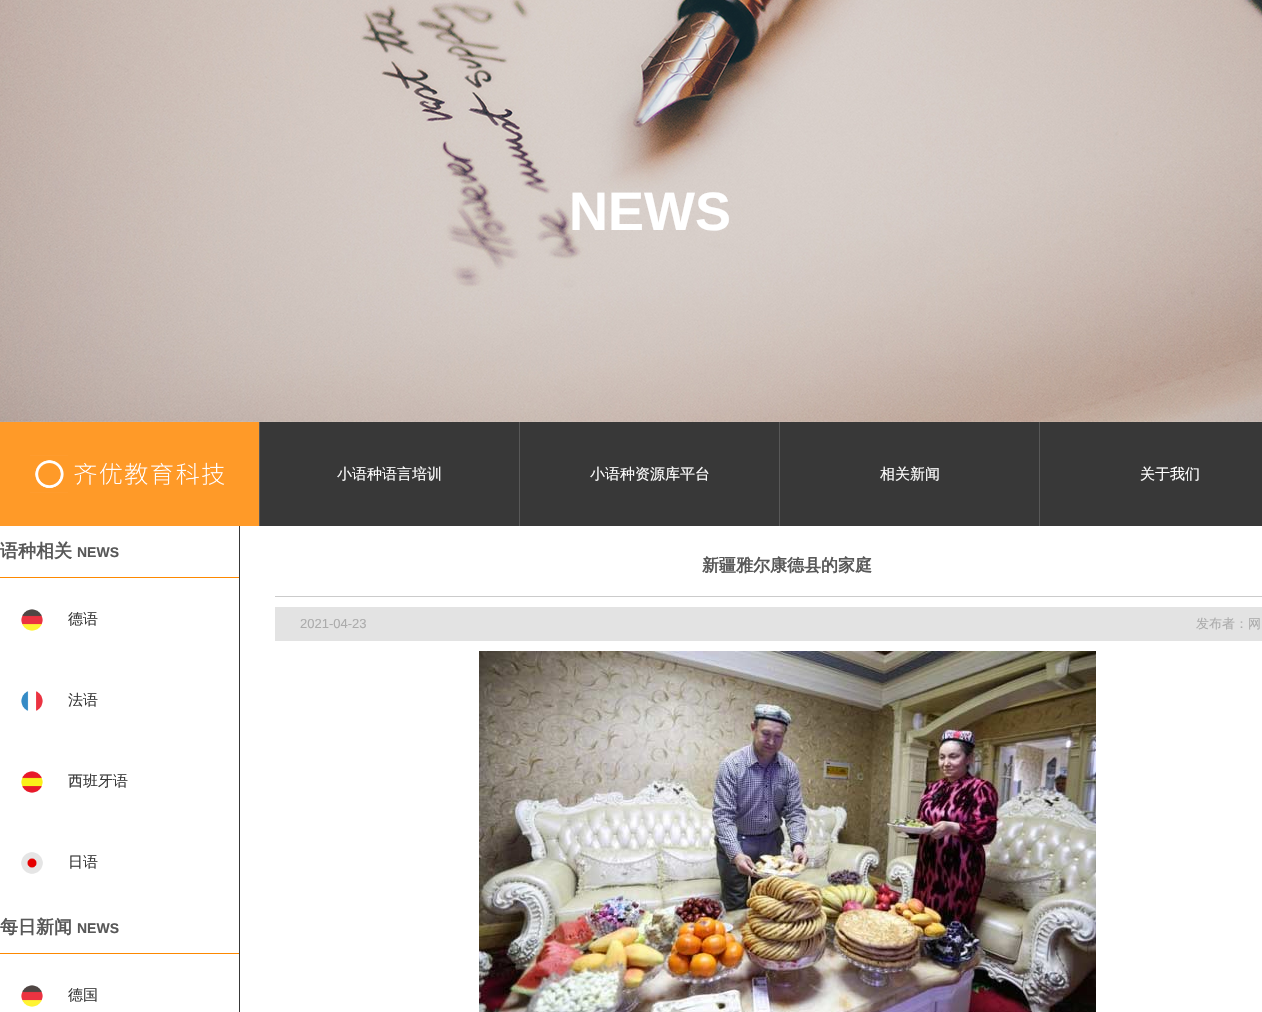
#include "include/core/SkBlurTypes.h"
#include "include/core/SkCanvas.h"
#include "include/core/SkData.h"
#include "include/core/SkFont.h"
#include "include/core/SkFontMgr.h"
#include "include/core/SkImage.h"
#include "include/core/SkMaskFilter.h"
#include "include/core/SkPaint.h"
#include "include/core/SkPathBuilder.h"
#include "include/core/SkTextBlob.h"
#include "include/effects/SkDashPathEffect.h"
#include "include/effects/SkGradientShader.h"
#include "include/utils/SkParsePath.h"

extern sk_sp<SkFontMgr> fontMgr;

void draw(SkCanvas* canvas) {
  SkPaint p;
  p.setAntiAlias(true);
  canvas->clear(SK_ColorWHITE);
  canvas->drawImageRect(SkImages::DeferredFromEncodedData(SkData::MakeFromFileName("images/1.png")), SkRect::MakeLTRB(0, 0, 1262, 422), SkSamplingOptions());
  p.setColor(SkColorSetRGB(255, 154, 40));
  canvas->drawRect(SkRect::MakeLTRB(0, 422, 259, 526), p);
  p.setColor(SkColorSetRGB(88, 88, 88));
  canvas->drawRect(SkRect::MakeLTRB(259, 422, 260, 526), p);
  canvas->drawImageRect(SkImages::DeferredFromEncodedData(SkData::MakeFromFileName("images/2.png")), SkRect::MakeLTRB(30, 455, 225, 493), SkSamplingOptions());
  p.setColor(SkColorSetRGB(56, 56, 56));
  canvas->drawRect(SkRect::MakeLTRB(260, 422, 519, 526), p);
  p.setColor(SkColorSetRGB(88, 88, 88));
  canvas->drawRect(SkRect::MakeLTRB(519, 422, 520, 526), p);
  p.setColor(SkColorSetRGB(56, 56, 56));
  canvas->drawRect(SkRect::MakeLTRB(520, 422, 779, 526), p);
  p.setColor(SkColorSetRGB(88, 88, 88));
  canvas->drawRect(SkRect::MakeLTRB(779, 422, 780, 526), p);
  p.setColor(SkColorSetRGB(56, 56, 56));
  canvas->drawRect(SkRect::MakeLTRB(780, 422, 1039, 526), p);
  p.setColor(SkColorSetRGB(88, 88, 88));
  canvas->drawRect(SkRect::MakeLTRB(1039, 422, 1040, 526), p);
  p.setColor(SkColorSetRGB(56, 56, 56));
  canvas->drawRect(SkRect::MakeLTRB(1040, 422, 1262, 526), p);
  canvas->drawRect(SkRect::MakeLTRB(239, 526, 240, 1012), p);
  p.setColor(SkColorSetRGB(253, 136, 0));
  canvas->drawRect(SkRect::MakeLTRB(0, 577, 239, 578), p);
  canvas->drawImageRect(SkImages::DeferredFromEncodedData(SkData::MakeFromFileName("images/3.png")), SkRect::MakeLTRB(21, 609, 43, 631), SkSamplingOptions());
  canvas->drawImageRect(SkImages::DeferredFromEncodedData(SkData::MakeFromFileName("images/4.png")), SkRect::MakeLTRB(21, 691, 43, 711), SkSamplingOptions());
  canvas->drawImageRect(SkImages::DeferredFromEncodedData(SkData::MakeFromFileName("images/5.png")), SkRect::MakeLTRB(21, 771, 43, 793), SkSamplingOptions());
  canvas->drawImageRect(SkImages::DeferredFromEncodedData(SkData::MakeFromFileName("images/6.png")), SkRect::MakeLTRB(21, 852, 43, 874), SkSamplingOptions());
  canvas->drawRect(SkRect::MakeLTRB(0, 953, 239, 954), p);
  canvas->drawImageRect(SkImages::DeferredFromEncodedData(SkData::MakeFromFileName("images/3.png")), SkRect::MakeLTRB(21, 985, 43, 1007), SkSamplingOptions());
  p.setColor(SkColorSetRGB(203, 203, 203));
  canvas->drawRect(SkRect::MakeLTRB(275, 596, 1262, 597), p);
  p.setColor(SkColorSetRGB(227, 227, 227));
  canvas->drawRect(SkRect::MakeLTRB(275, 607, 1262, 641), p);
  canvas->drawImageRect(SkImages::DeferredFromEncodedData(SkData::MakeFromFileName("images/7.png")), SkRect::MakeLTRB(479, 651, 1096, 1012), SkSamplingOptions());
  SkFont font1(fontMgr->matchFamilyStyle("Liberation Sans", SkFontStyle::Bold()), 54);
  font1.setSubpixel(true);
  p.setColor(SK_ColorWHITE);
  canvas->drawString("NEWS", 569, 230, font1, p);
  SkFont font2(fontMgr->matchFamilyStyle("WenQuanYi Zen Hei", SkFontStyle(500, SkFontStyle::kNormal_Width, SkFontStyle::kUpright_Slant)), 15);
  font2.setSubpixel(true);
  canvas->drawString("小语种语言培训", 337, 479, font2, p);
  canvas->drawString("小语种资源库平台", 590, 479, font2, p);
  canvas->drawString("相关新闻", 880, 479, font2, p);
  canvas->drawString("关于我们", 1140, 479, font2, p);
  SkFont font3(fontMgr->matchFamilyStyle("WenQuanYi Zen Hei", SkFontStyle::Bold()), 18);
  font3.setSubpixel(true);
  p.setColor(SkColorSetRGB(88, 88, 88));
  canvas->drawString("语种相关", 0, 557, font3, p);
  SkFont font4(fontMgr->matchFamilyStyle("Liberation Sans", SkFontStyle::Bold()), 14);
  font4.setSubpixel(true);
  canvas->drawString("NEWS", 77, 557, font4, p);
  p.setColor(SkColorSetRGB(56, 56, 56));
  canvas->drawString("德语", 68, 624, font2, p);
  canvas->drawString("法语", 68, 705, font2, p);
  canvas->drawString("西班牙语", 68, 786, font2, p);
  canvas->drawString("日语", 68, 867, font2, p);
  p.setColor(SkColorSetRGB(88, 88, 88));
  canvas->drawString("每日新闻", 0, 933, font3, p);
  canvas->drawString("NEWS", 77, 933, font4, p);
  p.setColor(SkColorSetRGB(56, 56, 56));
  canvas->drawString("德国", 68, 1000, font2, p);
  SkFont font5(fontMgr->matchFamilyStyle("WenQuanYi Zen Hei", SkFontStyle::Bold()), 17);
  font5.setSubpixel(true);
  p.setColor(SkColorSetRGB(88, 88, 88));
  canvas->drawString("新疆雅尔康德县的家庭", 702, 571, font5, p);
  SkFont font6(fontMgr->matchFamilyStyle("Liberation Sans", SkFontStyle::Normal()), 13);
  font6.setSubpixel(true);
  p.setColor(SkColorSetRGB(172, 172, 172));
  canvas->drawString("2021-04-23", 300, 628, font6, p);
  SkFont font7(fontMgr->matchFamilyStyle("WenQuanYi Zen Hei", SkFontStyle(500, SkFontStyle::kNormal_Width, SkFontStyle::kUpright_Slant)), 13);
  font7.setSubpixel(true);
  canvas->drawString("发布者：网", 1196, 628, font7, p);
}
